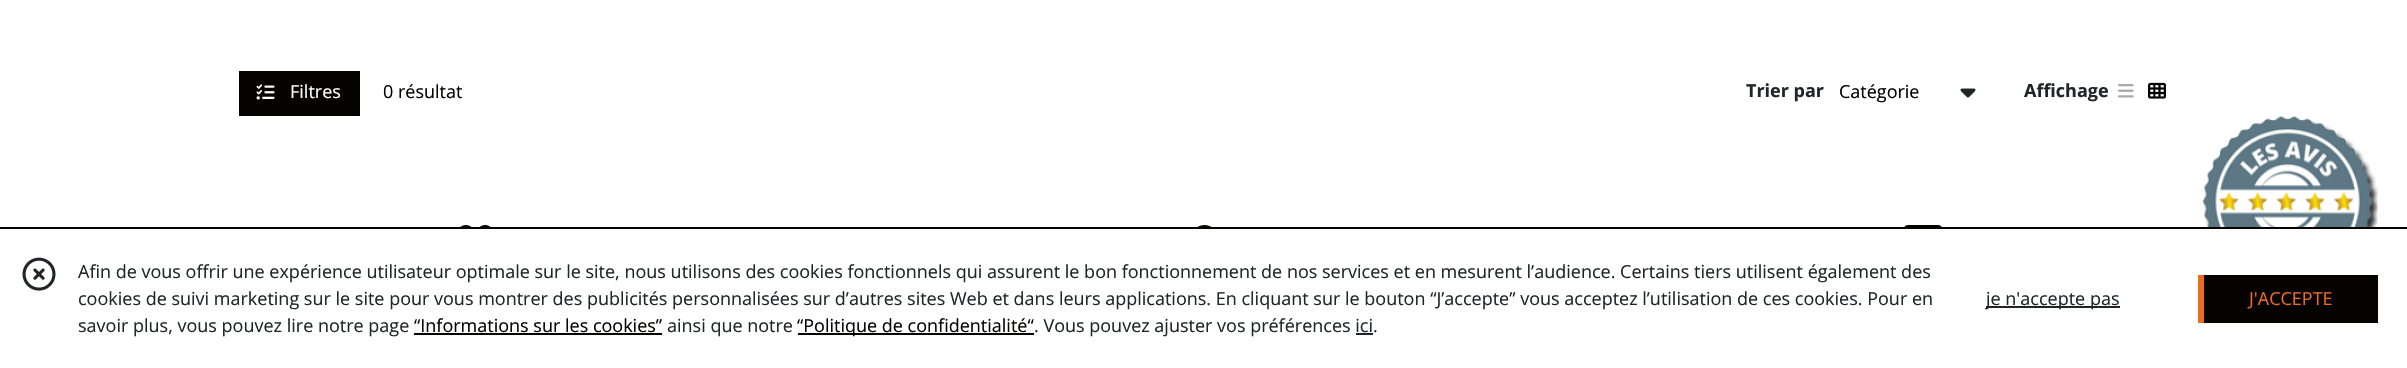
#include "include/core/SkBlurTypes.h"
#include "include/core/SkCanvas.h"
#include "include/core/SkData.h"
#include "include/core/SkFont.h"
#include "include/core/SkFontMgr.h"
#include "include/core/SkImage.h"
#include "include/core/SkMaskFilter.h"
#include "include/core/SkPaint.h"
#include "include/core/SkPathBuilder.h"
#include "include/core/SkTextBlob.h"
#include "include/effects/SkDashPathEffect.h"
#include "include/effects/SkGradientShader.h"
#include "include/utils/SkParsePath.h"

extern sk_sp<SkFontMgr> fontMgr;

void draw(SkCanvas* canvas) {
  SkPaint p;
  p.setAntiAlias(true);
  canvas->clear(SK_ColorWHITE);
  p.setColor(SkColorSetRGB(6, 2, 2));
  canvas->drawRect(SkRect::MakeLTRB(239, 71, 360, 116), p);
  canvas->drawImageRect(SkImages::DeferredFromEncodedData(SkData::MakeFromFileName("images/1.png")), SkRect::MakeLTRB(256, 84, 275, 100), SkSamplingOptions());
  canvas->drawImageRect(SkImages::DeferredFromEncodedData(SkData::MakeFromFileName("images/2.png")), SkRect::MakeLTRB(1960, 88, 1976, 98), SkSamplingOptions());
  canvas->drawImageRect(SkImages::DeferredFromEncodedData(SkData::MakeFromFileName("images/3.png")), SkRect::MakeLTRB(2118, 84, 2134, 98), SkSamplingOptions());
  canvas->drawImageRect(SkImages::DeferredFromEncodedData(SkData::MakeFromFileName("images/4.png")), SkRect::MakeLTRB(2148, 82, 2166, 99), SkSamplingOptions());
  canvas->drawImageRect(SkImages::DeferredFromEncodedData(SkData::MakeFromFileName("images/5.png")), SkRect::MakeLTRB(460, 225, 491, 227), SkSamplingOptions());
  canvas->drawImageRect(SkImages::DeferredFromEncodedData(SkData::MakeFromFileName("images/6.png")), SkRect::MakeLTRB(1197, 225, 1212, 227), SkSamplingOptions());
  canvas->drawImageRect(SkImages::DeferredFromEncodedData(SkData::MakeFromFileName("images/7.png")), SkRect::MakeLTRB(1904, 225, 1942, 227), SkSamplingOptions());
  canvas->drawImageRect(SkImages::DeferredFromEncodedData(SkData::MakeFromFileName("images/8.png")), SkRect::MakeLTRB(2203, 116, 2378, 227), SkSamplingOptions());
  canvas->drawRect(SkRect::MakeLTRB(0, 227, 2407, 229), p);
  canvas->drawImageRect(SkImages::DeferredFromEncodedData(SkData::MakeFromFileName("images/9.png")), SkRect::MakeLTRB(22, 257, 56, 291), SkSamplingOptions());
  canvas->drawRect(SkRect::MakeLTRB(414, 333, 662, 335), p);
  canvas->drawRect(SkRect::MakeLTRB(798, 333, 1034, 335), p);
  p.setColor(SkColorSetRGB(33, 37, 41));
  canvas->drawRect(SkRect::MakeLTRB(1356, 333, 1373, 335), p);
  canvas->drawRect(SkRect::MakeLTRB(1986, 306, 2120, 308), p);
  p.setColor(SkColorSetRGB(6, 2, 2));
  canvas->drawRect(SkRect::MakeLTRB(2204, 275, 2378, 323), p);
  p.setColor(SkColorSetRGB(233, 108, 31));
  canvas->drawRect(SkRect::MakeLTRB(2198, 275, 2204, 323), p);
  SkFont font1(fontMgr->matchFamilyStyle("Open Sans", SkFontStyle::Normal()), 18);
  font1.setSubpixel(true);
  p.setColor(SK_ColorWHITE);
  canvas->drawString("Filtres", 290, 98, font1, p);
  p.setColor(SkColorSetRGB(6, 2, 2));
  canvas->drawString("0 résultat", 383, 98, font1, p);
  SkFont font2(fontMgr->matchFamilyStyle("Open Sans", SkFontStyle::Bold()), 18);
  font2.setSubpixel(true);
  p.setColor(SkColorSetRGB(33, 37, 41));
  canvas->drawString("Trier par", 1746, 97, font2, p);
  p.setColor(SK_ColorBLACK);
  canvas->drawString("Catégorie", 1839, 98, font1, p);
  p.setColor(SkColorSetRGB(33, 37, 41));
  canvas->drawString("Affichage", 2024, 97, font2, p);
  canvas->drawString("Afin de vous offrir une expérience utilisateur optimale sur le site, nous utilisons des cookies fonctionnels qui assurent le bon fonctionnement de nos services et en mesurent l’audience. Certains tiers utilisent également des", 78, 278, font1, p);
  canvas->drawString("cookies de suivi marketing sur le site pour vous montrer des publicités personnalisées sur d’autres sites Web et dans leurs applications. En cliquant sur le bouton “J’accepte” vous acceptez l’utilisation de ces cookies. Pour en", 78, 305, font1, p);
  canvas->drawString("savoir plus, vous pouvez lire notre page", 78, 332, font1, p);
  p.setColor(SkColorSetRGB(6, 2, 2));
  canvas->drawString("“Informations sur les cookies”", 414, 332, font1, p);
  p.setColor(SkColorSetRGB(33, 37, 41));
  canvas->drawString("ainsi que notre", 667, 332, font1, p);
  p.setColor(SkColorSetRGB(6, 2, 2));
  canvas->drawString("“Politique de confidentialité“", 797, 332, font1, p);
  p.setColor(SkColorSetRGB(33, 37, 41));
  canvas->drawString(". Vous pouvez ajuster vos préférences ici.", 1034, 332, font1, p);
  canvas->drawString("je n'accepte pas", 1986, 305, font1, p);
  p.setColor(SkColorSetRGB(233, 108, 31));
  canvas->drawString("J'ACCEPTE", 2249, 305, font1, p);
}
